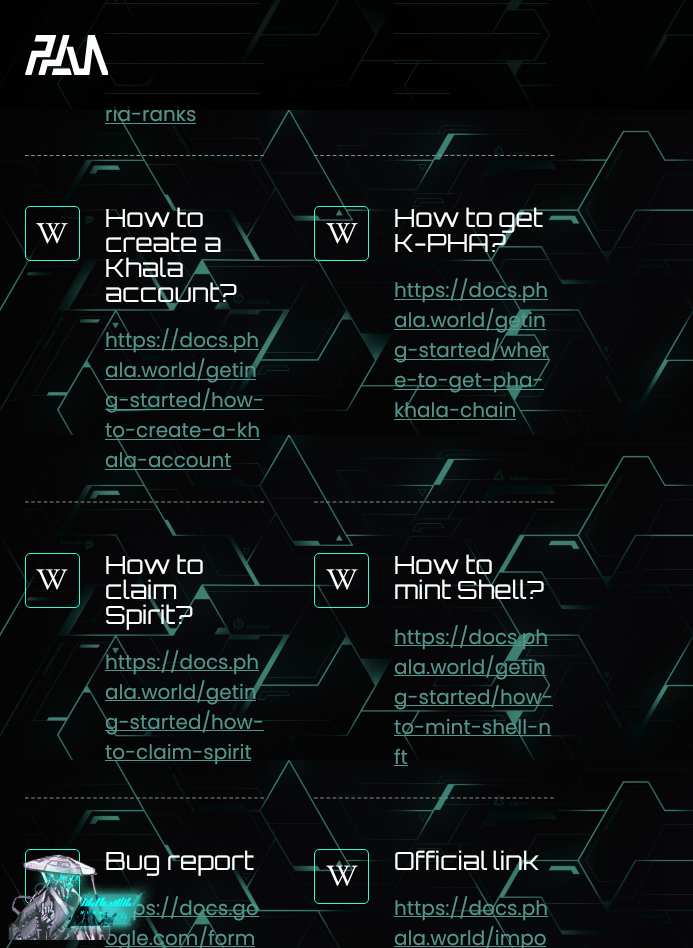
#include "include/core/SkBlurTypes.h"
#include "include/core/SkCanvas.h"
#include "include/core/SkData.h"
#include "include/core/SkFont.h"
#include "include/core/SkFontMgr.h"
#include "include/core/SkImage.h"
#include "include/core/SkMaskFilter.h"
#include "include/core/SkPaint.h"
#include "include/core/SkPathBuilder.h"
#include "include/core/SkTextBlob.h"
#include "include/effects/SkDashPathEffect.h"
#include "include/effects/SkGradientShader.h"
#include "include/utils/SkParsePath.h"

extern sk_sp<SkFontMgr> fontMgr;

void draw(SkCanvas* canvas) {
  SkPaint p;
  p.setAntiAlias(true);
  auto spacedText = [&](const char* s, float x, float y, const SkFont& font, const SkPaint& ink, float letter, float word) {
    std::vector<SkGlyphID> glyphs(font.countText(s, strlen(s), SkTextEncoding::kUTF8));
    std::vector<float> xs(glyphs.size());
    font.textToGlyphs(s, strlen(s), SkTextEncoding::kUTF8, glyphs);
    font.getXPos(glyphs, xs, x);
    float extra = 0;
    for (size_t i = 0; i < glyphs.size(); i++) {
      xs[i] += extra;
      extra += letter + word * (glyphs[i] == font.unicharToGlyph(' '));
    }
    canvas->drawTextBlob(SkTextBlob::MakeFromPosHGlyphs(glyphs, xs, y, font), 0, 0, ink);
  };
  canvas->clear(SK_ColorWHITE);
  canvas->drawImageRect(SkImages::DeferredFromEncodedData(SkData::MakeFromFileName("images/1.png")), SkRect::MakeLTRB(0, 0, 693, 948), SkSamplingOptions());
  p.setStyle(SkPaint::kStroke_Style);
  p.setStrokeWidth(1.2f);
  p.setColor(SkColorSetRGB(140, 140, 140));
  p.setPathEffect(SkDashPathEffect::Make({{3.75f, 2.44f}}, 0));
  canvas->drawPath(SkPathBuilder().moveTo(25, 155.5f).lineTo(264, 155.5f).detach(), p);
  p.setPathEffect(nullptr);
  p.setStyle(SkPaint::kFill_Style);
  p.setColor(SkColorSetRGB(84, 149, 140));
  canvas->drawRect(SkRect::MakeLTRB(105, 3, 259, 4), p);
  canvas->drawRect(SkRect::MakeLTRB(105, 33, 251, 34), p);
  canvas->drawRect(SkRect::MakeLTRB(105, 63, 264, 64), p);
  canvas->drawRect(SkRect::MakeLTRB(105, 93, 261, 94), p);
  canvas->drawRect(SkRect::MakeLTRB(105, 123, 196, 124), p);
  p.setStyle(SkPaint::kStroke_Style);
  p.setColor(SkColorSetRGB(140, 140, 140));
  p.setPathEffect(SkDashPathEffect::Make({{3.75f, 2.46f}}, 0));
  canvas->drawPath(SkPathBuilder().moveTo(314, 155.5f).lineTo(554, 155.5f).detach(), p);
  p.setPathEffect(nullptr);
  p.setStyle(SkPaint::kFill_Style);
  p.setColor(SkColorSetRGB(84, 149, 140));
  canvas->drawRect(SkRect::MakeLTRB(394, 3, 548, 4), p);
  canvas->drawRect(SkRect::MakeLTRB(394, 33, 540, 34), p);
  canvas->drawRect(SkRect::MakeLTRB(394, 63, 546, 64), p);
  canvas->drawRect(SkRect::MakeLTRB(394, 93, 450, 94), p);
  p.setStyle(SkPaint::kStroke_Style);
  p.setColor(SkColorSetRGB(140, 140, 140));
  p.setPathEffect(SkDashPathEffect::Make({{3.75f, 2.44f}}, 0));
  canvas->drawPath(SkPathBuilder().moveTo(25, 502).lineTo(264, 502).detach(), p);
  p.setPathEffect(nullptr);
  p.setStrokeWidth(1);
  p.setColor(SkColorSetRGB(54, 250, 215));
  canvas->drawRoundRect(SkRect::MakeLTRB(25.5f, 206.5f, 79.5f, 260.5f), 4.5f, 4.5f, p);
  canvas->drawImageRect(SkImages::DeferredFromEncodedData(SkData::MakeFromFileName("images/4.png")), SkRect::MakeLTRB(36, 223, 68, 244), SkSamplingOptions());
  p.setStyle(SkPaint::kFill_Style);
  p.setColor(SkColorSetRGB(84, 149, 140));
  canvas->drawRect(SkRect::MakeLTRB(105, 349, 259, 350), p);
  canvas->drawRect(SkRect::MakeLTRB(105, 379, 256, 380), p);
  canvas->drawRect(SkRect::MakeLTRB(105, 409, 264, 410), p);
  canvas->drawRect(SkRect::MakeLTRB(105, 439, 260, 440), p);
  canvas->drawRect(SkRect::MakeLTRB(105, 469, 231, 470), p);
  p.setStyle(SkPaint::kStroke_Style);
  p.setStrokeWidth(1.2f);
  p.setColor(SkColorSetRGB(140, 140, 140));
  p.setPathEffect(SkDashPathEffect::Make({{3.75f, 2.46f}}, 0));
  canvas->drawPath(SkPathBuilder().moveTo(314, 502).lineTo(554, 502).detach(), p);
  p.setPathEffect(nullptr);
  p.setStrokeWidth(1);
  p.setColor(SkColorSetRGB(54, 250, 215));
  canvas->drawRoundRect(SkRect::MakeLTRB(314.5f, 206.5f, 368.5f, 260.5f), 4.5f, 4.5f, p);
  canvas->drawImageRect(SkImages::DeferredFromEncodedData(SkData::MakeFromFileName("images/5.png")), SkRect::MakeLTRB(326, 223, 358, 244), SkSamplingOptions());
  p.setStyle(SkPaint::kFill_Style);
  p.setColor(SkColorSetRGB(84, 149, 140));
  canvas->drawRect(SkRect::MakeLTRB(394, 299, 548, 300), p);
  canvas->drawRect(SkRect::MakeLTRB(394, 329, 546, 330), p);
  canvas->drawRect(SkRect::MakeLTRB(394, 359, 549, 360), p);
  canvas->drawRect(SkRect::MakeLTRB(394, 389, 544, 390), p);
  canvas->drawRect(SkRect::MakeLTRB(394, 419, 516, 420), p);
  p.setStyle(SkPaint::kStroke_Style);
  p.setStrokeWidth(1.2f);
  p.setColor(SkColorSetRGB(140, 140, 140));
  p.setPathEffect(SkDashPathEffect::Make({{3.75f, 2.44f}}, 0));
  canvas->drawPath(SkPathBuilder().moveTo(25, 798).lineTo(264, 798).detach(), p);
  p.setPathEffect(nullptr);
  p.setStrokeWidth(1);
  p.setColor(SkColorSetRGB(54, 250, 215));
  canvas->drawRoundRect(SkRect::MakeLTRB(25.5f, 553.5f, 79.5f, 607.5f), 4.5f, 4.5f, p);
  canvas->drawImageRect(SkImages::DeferredFromEncodedData(SkData::MakeFromFileName("images/6.png")), SkRect::MakeLTRB(36, 569, 68, 590), SkSamplingOptions());
  p.setStyle(SkPaint::kFill_Style);
  p.setColor(SkColorSetRGB(84, 149, 140));
  canvas->drawRect(SkRect::MakeLTRB(105, 670, 259, 671), p);
  canvas->drawRect(SkRect::MakeLTRB(105, 700, 256, 701), p);
  canvas->drawRect(SkRect::MakeLTRB(105, 730, 264, 731), p);
  canvas->drawRect(SkRect::MakeLTRB(105, 760, 251, 761), p);
  p.setStyle(SkPaint::kStroke_Style);
  p.setStrokeWidth(1.2f);
  p.setColor(SkColorSetRGB(140, 140, 140));
  p.setPathEffect(SkDashPathEffect::Make({{3.75f, 2.46f}}, 0));
  canvas->drawPath(SkPathBuilder().moveTo(314, 798).lineTo(554, 798).detach(), p);
  p.setPathEffect(nullptr);
  p.setStrokeWidth(1);
  p.setColor(SkColorSetRGB(54, 250, 215));
  canvas->drawRoundRect(SkRect::MakeLTRB(314.5f, 553.5f, 368.5f, 607.5f), 4.5f, 4.5f, p);
  canvas->drawImageRect(SkImages::DeferredFromEncodedData(SkData::MakeFromFileName("images/7.png")), SkRect::MakeLTRB(326, 569, 358, 590), SkSamplingOptions());
  p.setStyle(SkPaint::kFill_Style);
  p.setColor(SkColorSetRGB(84, 149, 140));
  canvas->drawRect(SkRect::MakeLTRB(394, 645, 548, 646), p);
  canvas->drawRect(SkRect::MakeLTRB(394, 675, 546, 676), p);
  canvas->drawRect(SkRect::MakeLTRB(394, 705, 553, 706), p);
  canvas->drawRect(SkRect::MakeLTRB(394, 735, 551, 736), p);
  canvas->drawRect(SkRect::MakeLTRB(394, 765, 408, 766), p);
  p.setStyle(SkPaint::kStroke_Style);
  p.setColor(SkColorSetRGB(54, 250, 215));
  canvas->drawRoundRect(SkRect::MakeLTRB(25.5f, 849.5f, 79.5f, 903.5f), 4.5f, 4.5f, p);
  canvas->drawImageRect(SkImages::DeferredFromEncodedData(SkData::MakeFromFileName("images/8.png")), SkRect::MakeLTRB(40, 871, 64, 886), SkSamplingOptions());
  p.setStyle(SkPaint::kFill_Style);
  p.setColor(SkColorSetRGB(84, 149, 140));
  canvas->drawRect(SkRect::MakeLTRB(131, 916, 259, 917), p);
  canvas->drawRect(SkRect::MakeLTRB(105, 946, 255, 947), p);
  p.setStyle(SkPaint::kStroke_Style);
  p.setColor(SkColorSetRGB(54, 250, 215));
  canvas->drawRoundRect(SkRect::MakeLTRB(314.5f, 849.5f, 368.5f, 903.5f), 4.5f, 4.5f, p);
  canvas->drawImageRect(SkImages::DeferredFromEncodedData(SkData::MakeFromFileName("images/9.png")), SkRect::MakeLTRB(326, 865, 358, 886), SkSamplingOptions());
  p.setStyle(SkPaint::kFill_Style);
  p.setColor(SkColorSetRGB(84, 149, 140));
  canvas->drawRect(SkRect::MakeLTRB(394, 916, 548, 917), p);
  canvas->drawRect(SkRect::MakeLTRB(394, 946, 546, 947), p);
  SkFont font1(fontMgr->matchFamilyStyle("Poppins", SkFontStyle::Normal()), 20);
  font1.setSubpixel(true);
  canvas->drawString("rld-ranks", 105, 121, font1, p);
  p.setColor(SkColorSetARGB(204, 0, 0, 0));
  canvas->drawRect(SkRect::MakeLTRB(0, 0, 693, 110), p);
  canvas->drawImageRect(SkImages::DeferredFromEncodedData(SkData::MakeFromFileName("images/2.png")), SkRect::MakeLTRB(25, 35, 108, 75), SkSamplingOptions());
  SkFont font2(fontMgr->matchFamilyStyle("Orbitron", SkFontStyle::Normal()), 25);
  font2.setSubpixel(true);
  p.setColor(SK_ColorWHITE);
  spacedText("How to", 105, 227, font2, p, 0, -1);
  canvas->drawString("create a", 105, 252, font2, p);
  canvas->drawString("Khala", 105, 277, font2, p);
  canvas->drawString("account?", 105, 302, font2, p);
  p.setColor(SkColorSetRGB(84, 149, 140));
  canvas->drawString("https://docs.ph", 105, 347, font1, p);
  canvas->drawString("ala.world/getin", 105, 377, font1, p);
  canvas->drawString("g-started/how-", 105, 407, font1, p);
  canvas->drawString("to-create-a-kh", 105, 437, font1, p);
  canvas->drawString("ala-account", 105, 467, font1, p);
  p.setColor(SK_ColorWHITE);
  spacedText("How to get", 394, 227, font2, p, 0, -1);
  canvas->drawString("K-PHA?", 394, 252, font2, p);
  p.setColor(SkColorSetRGB(84, 149, 140));
  canvas->drawString("https://docs.ph", 394, 297, font1, p);
  canvas->drawString("ala.world/getin", 394, 327, font1, p);
  canvas->drawString("g-started/wher", 394, 357, font1, p);
  canvas->drawString("e-to-get-pha-", 394, 387, font1, p);
  canvas->drawString("khala-chain", 394, 417, font1, p);
  p.setColor(SK_ColorWHITE);
  spacedText("How to", 105, 574, font2, p, 0, -1);
  canvas->drawString("claim", 105, 599, font2, p);
  canvas->drawString("Spirit?", 105, 624, font2, p);
  p.setColor(SkColorSetRGB(84, 149, 140));
  canvas->drawString("https://docs.ph", 105, 669, font1, p);
  canvas->drawString("ala.world/getin", 105, 699, font1, p);
  canvas->drawString("g-started/how-", 105, 729, font1, p);
  canvas->drawString("to-claim-spirit", 105, 759, font1, p);
  p.setColor(SK_ColorWHITE);
  spacedText("How to", 394, 574, font2, p, 0, -1);
  spacedText("mint Shell?", 394, 599, font2, p, 0, -1);
  p.setColor(SkColorSetRGB(84, 149, 140));
  canvas->drawString("https://docs.ph", 394, 644, font1, p);
  canvas->drawString("ala.world/getin", 394, 674, font1, p);
  canvas->drawString("g-started/how-", 394, 704, font1, p);
  canvas->drawString("to-mint-shell-n", 394, 734, font1, p);
  canvas->drawString("ft", 394, 764, font1, p);
  p.setColor(SK_ColorWHITE);
  canvas->drawString("Bug report", 105, 870, font2, p);
  p.setColor(SkColorSetRGB(84, 149, 140));
  canvas->drawString("ps://docs.go", 132, 915, font1, p);
  canvas->drawString("ogle.com/form", 105, 945, font1, p);
  canvas->drawImageRect(SkImages::DeferredFromEncodedData(SkData::MakeFromFileName("images/3.png")), SkRect::MakeLTRB(8, 854, 155, 940), SkSamplingOptions());
  p.setColor(SK_ColorWHITE);
  spacedText("Official link", 394, 870, font2, p, 0, -2);
  p.setColor(SkColorSetRGB(84, 149, 140));
  canvas->drawString("https://docs.ph", 394, 915, font1, p);
  canvas->drawString("ala.world/impo", 394, 945, font1, p);
}
